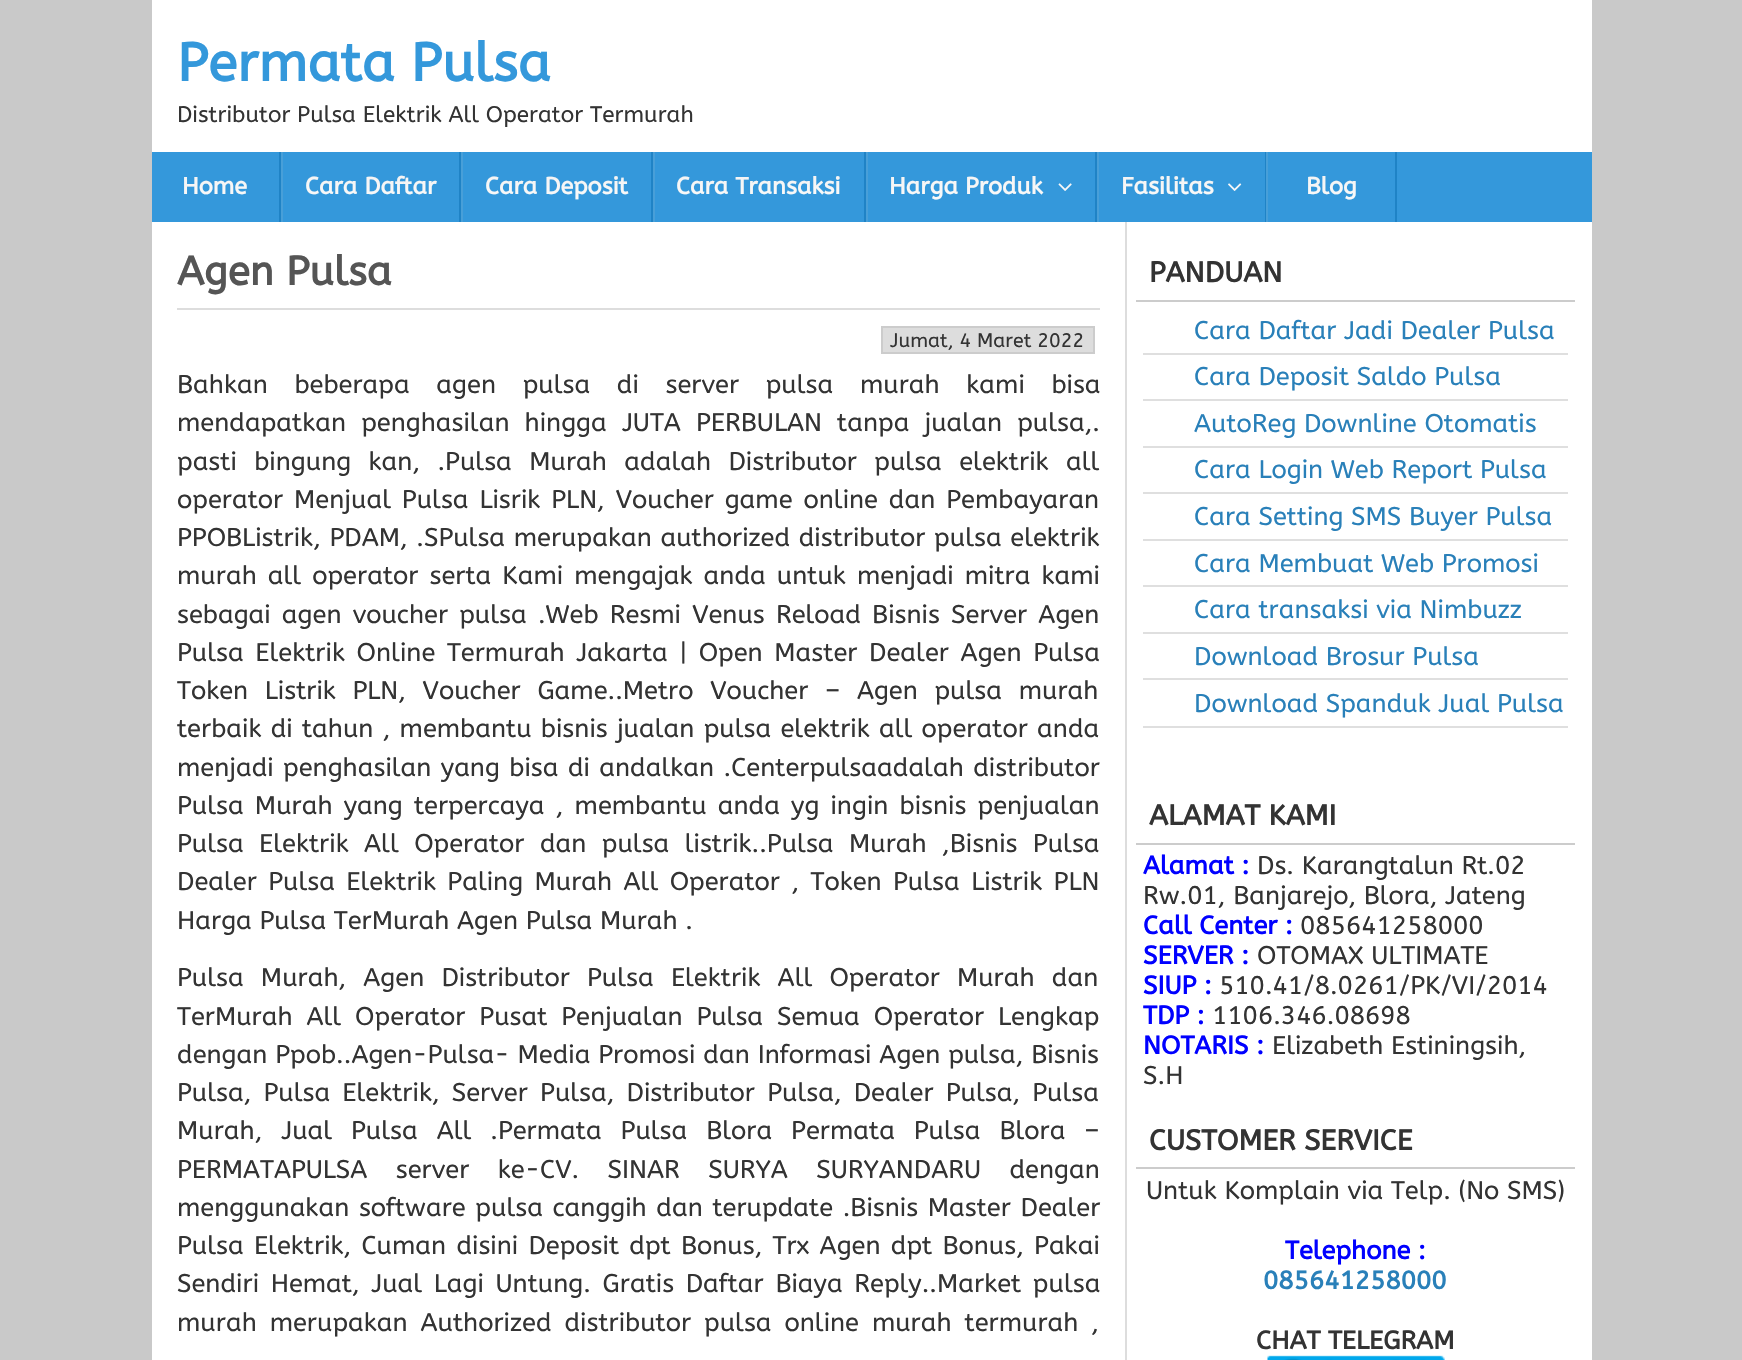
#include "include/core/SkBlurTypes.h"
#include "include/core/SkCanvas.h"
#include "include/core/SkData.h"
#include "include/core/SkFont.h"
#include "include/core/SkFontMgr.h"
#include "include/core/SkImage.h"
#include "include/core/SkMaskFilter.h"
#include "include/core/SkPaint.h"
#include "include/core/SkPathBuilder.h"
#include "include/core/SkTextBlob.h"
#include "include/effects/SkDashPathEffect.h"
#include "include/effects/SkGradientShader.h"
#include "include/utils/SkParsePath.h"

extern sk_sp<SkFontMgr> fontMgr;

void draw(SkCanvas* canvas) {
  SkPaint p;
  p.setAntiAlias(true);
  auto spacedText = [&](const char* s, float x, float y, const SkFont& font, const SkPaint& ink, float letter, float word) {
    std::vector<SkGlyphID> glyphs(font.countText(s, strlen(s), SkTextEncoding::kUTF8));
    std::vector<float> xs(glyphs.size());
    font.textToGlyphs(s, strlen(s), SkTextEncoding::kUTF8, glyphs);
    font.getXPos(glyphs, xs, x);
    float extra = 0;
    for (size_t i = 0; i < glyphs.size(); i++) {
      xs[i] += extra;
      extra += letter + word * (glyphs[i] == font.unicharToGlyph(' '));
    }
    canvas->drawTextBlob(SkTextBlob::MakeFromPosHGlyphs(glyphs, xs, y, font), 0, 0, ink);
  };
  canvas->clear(SkColorSetRGB(201, 201, 201));
  p.setColor(SK_ColorWHITE);
  canvas->drawRect(SkRect::MakeLTRB(152, 0, 1592, 1360), p);
  p.setColor(SkColorSetRGB(52, 152, 219));
  canvas->drawRect(SkRect::MakeLTRB(152, 152, 1592, 222), p);
  p.setColor(SkColorSetRGB(31, 131, 198));
  canvas->drawRect(SkRect::MakeLTRB(279, 152, 281, 222), p);
  canvas->drawRect(SkRect::MakeLTRB(459, 152, 461, 222), p);
  p.setColor(SkColorSetRGB(72, 159, 216));
  canvas->drawRect(SkRect::MakeLTRB(281, 152, 283, 222), p);
  p.setColor(SkColorSetRGB(31, 131, 198));
  canvas->drawRect(SkRect::MakeLTRB(651, 152, 653, 222), p);
  p.setColor(SkColorSetRGB(72, 159, 216));
  canvas->drawRect(SkRect::MakeLTRB(461, 152, 463, 222), p);
  p.setColor(SkColorSetRGB(31, 131, 198));
  canvas->drawRect(SkRect::MakeLTRB(864, 152, 866, 222), p);
  p.setColor(SkColorSetRGB(72, 159, 216));
  canvas->drawRect(SkRect::MakeLTRB(653, 152, 655, 222), p);
  p.setColor(SkColorSetRGB(31, 131, 198));
  canvas->drawRect(SkRect::MakeLTRB(1095, 152, 1097, 222), p);
  p.setColor(SkColorSetRGB(72, 159, 216));
  canvas->drawRect(SkRect::MakeLTRB(866, 152, 868, 222), p);
  canvas->drawImageRect(SkImages::DeferredFromEncodedData(SkData::MakeFromFileName("images/1.png")), SkRect::MakeLTRB(1058, 183, 1072, 191), SkSamplingOptions());
  p.setColor(SkColorSetRGB(31, 131, 198));
  canvas->drawRect(SkRect::MakeLTRB(1265, 152, 1266, 222), p);
  p.setColor(SkColorSetRGB(72, 159, 216));
  canvas->drawRect(SkRect::MakeLTRB(1097, 152, 1099, 222), p);
  canvas->drawImageRect(SkImages::DeferredFromEncodedData(SkData::MakeFromFileName("images/2.png")), SkRect::MakeLTRB(1228, 183, 1242, 191), SkSamplingOptions());
  p.setColor(SkColorSetRGB(31, 131, 198));
  canvas->drawRect(SkRect::MakeLTRB(1395, 152, 1397, 222), p);
  p.setColor(SkColorSetRGB(72, 159, 216));
  canvas->drawRect(SkRect::MakeLTRB(1266, 152, 1268, 222), p);
  p.setColor(SkColorSetRGB(221, 221, 221));
  canvas->drawRect(SkRect::MakeLTRB(1125, 222, 1127, 1360), p);
  canvas->drawRect(SkRect::MakeLTRB(177, 308, 1100, 310), p);
  canvas->drawRect(SkRect::MakeLTRB(882, 327, 1094, 353), p);
  p.setStyle(SkPaint::kStroke_Style);
  p.setStrokeWidth(2);
  p.setColor(SkColorSetRGB(204, 204, 204));
  canvas->drawRect(SkRect::MakeLTRB(882, 327, 1094, 353), p);
  p.setStyle(SkPaint::kFill_Style);
  canvas->drawRect(SkRect::MakeLTRB(1136, 300, 1575, 302), p);
  p.setColor(SkColorSetRGB(223, 223, 223));
  canvas->drawRect(SkRect::MakeLTRB(1143, 353, 1568, 355), p);
  canvas->drawRect(SkRect::MakeLTRB(1143, 399, 1568, 401), p);
  canvas->drawRect(SkRect::MakeLTRB(1143, 446, 1568, 448), p);
  canvas->drawRect(SkRect::MakeLTRB(1143, 492, 1568, 494), p);
  canvas->drawRect(SkRect::MakeLTRB(1143, 539, 1568, 541), p);
  canvas->drawRect(SkRect::MakeLTRB(1143, 585, 1568, 587), p);
  canvas->drawRect(SkRect::MakeLTRB(1143, 632, 1568, 634), p);
  canvas->drawRect(SkRect::MakeLTRB(1143, 678, 1568, 680), p);
  canvas->drawRect(SkRect::MakeLTRB(1143, 726, 1568, 728), p);
  p.setColor(SkColorSetRGB(204, 204, 204));
  canvas->drawRect(SkRect::MakeLTRB(1136, 843, 1575, 845), p);
  canvas->drawRect(SkRect::MakeLTRB(1136, 1167, 1575, 1169), p);
  canvas->drawImageRect(SkImages::DeferredFromEncodedData(SkData::MakeFromFileName("images/3.png")), SkRect::MakeLTRB(1267, 1355, 1445, 1360), SkSamplingOptions());
  SkFont font1(fontMgr->matchFamilyStyle("ABeeZee", SkFontStyle::Bold()), 53.5f);
  font1.setSubpixel(true);
  p.setColor(SkColorSetRGB(52, 152, 219));
  canvas->drawString("Permata Pulsa", 177, 81, font1, p);
  SkFont font2(fontMgr->matchFamilyStyle("ABeeZee", SkFontStyle::Normal()), 22.5f);
  font2.setSubpixel(true);
  p.setColor(SkColorSetRGB(51, 51, 51));
  canvas->drawString("Distributor Pulsa Elektrik All Operator Termurah", 177, 122, font2, p);
  SkFont font3(fontMgr->matchFamilyStyle("ABeeZee", SkFontStyle::Bold()), 23.5f);
  font3.setSubpixel(true);
  {
    const SkColor colors[] = {SkColorSetRGB(238, 238, 238), SK_ColorWHITE};
    const float stops[] = {0, 1};
    const SkPoint ends[] = {{215, 152}, {215, 222}};
    p.setShader(SkGradientShader::MakeLinear(ends, colors, stops, 2, SkTileMode::kClamp));
    p.setAlpha(255);
  }
  canvas->drawString("Home", 182, 194, font3, p);
  {
    const SkColor colors[] = {SkColorSetRGB(238, 238, 238), SK_ColorWHITE};
    const float stops[] = {0, 1};
    const SkPoint ends[] = {{371, 152}, {371, 222}};
    p.setShader(SkGradientShader::MakeLinear(ends, colors, stops, 2, SkTileMode::kClamp));
    p.setAlpha(255);
  }
  canvas->drawString("Cara Daftar", 305, 194, font3, p);
  {
    const SkColor colors[] = {SkColorSetRGB(238, 238, 238), SK_ColorWHITE};
    const float stops[] = {0, 1};
    const SkPoint ends[] = {{556, 152}, {556, 222}};
    p.setShader(SkGradientShader::MakeLinear(ends, colors, stops, 2, SkTileMode::kClamp));
    p.setAlpha(255);
  }
  canvas->drawString("Cara Deposit", 485, 194, font3, p);
  {
    const SkColor colors[] = {SkColorSetRGB(238, 238, 238), SK_ColorWHITE};
    const float stops[] = {0, 1};
    const SkPoint ends[] = {{759, 152}, {759, 222}};
    p.setShader(SkGradientShader::MakeLinear(ends, colors, stops, 2, SkTileMode::kClamp));
    p.setAlpha(255);
  }
  canvas->drawString("Cara Transaksi", 676, 194, font3, p);
  {
    const SkColor colors[] = {SkColorSetRGB(238, 238, 238), SK_ColorWHITE};
    const float stops[] = {0, 1};
    const SkPoint ends[] = {{981, 151}, {981, 222}};
    p.setShader(SkGradientShader::MakeLinear(ends, colors, stops, 2, SkTileMode::kClamp));
    p.setAlpha(255);
  }
  canvas->drawString("Harga Produk", 889, 194, font3, p);
  {
    const SkColor colors[] = {SkColorSetRGB(238, 238, 238), SK_ColorWHITE};
    const float stops[] = {0, 1};
    const SkPoint ends[] = {{1182, 152}, {1182, 222}};
    p.setShader(SkGradientShader::MakeLinear(ends, colors, stops, 2, SkTileMode::kClamp));
    p.setAlpha(255);
  }
  canvas->drawString("Fasilitas", 1121, 194, font3, p);
  {
    const SkColor colors[] = {SkColorSetRGB(238, 238, 238), SK_ColorWHITE};
    const float stops[] = {0, 1};
    const SkPoint ends[] = {{1332, 152}, {1332, 222}};
    p.setShader(SkGradientShader::MakeLinear(ends, colors, stops, 2, SkTileMode::kClamp));
    p.setAlpha(255);
  }
  canvas->drawString("Blog", 1306, 194, font3, p);
  SkFont font4(fontMgr->matchFamilyStyle("ABeeZee", SkFontStyle::Bold()), 40.5f);
  font4.setSubpixel(true);
  p.setShader(nullptr);
  p.setColor(SkColorSetRGB(85, 85, 85));
  canvas->drawString("Agen Pulsa", 177, 285, font4, p);
  SkFont font5(fontMgr->matchFamilyStyle("ABeeZee", SkFontStyle::Normal()), 19.5f);
  font5.setSubpixel(true);
  p.setColor(SkColorSetRGB(51, 51, 51));
  canvas->drawString("Jumat, 4 Maret 2022", 890, 347, font5, p);
  SkFont font6(fontMgr->matchFamilyStyle("ABeeZee", SkFontStyle::Normal()), 25.5f);
  font6.setSubpixel(true);
  spacedText("Bahkan beberapa agen pulsa di server pulsa murah kami bisa", 177, 393, font6, p, 0, 19);
  spacedText("mendapatkan penghasilan hingga JUTA PERBULAN tanpa jualan pulsa,.", 177, 431, font6, p, 0, 7.5f);
  spacedText("pasti bingung kan, .Pulsa Murah adalah Distributor pulsa elektrik all", 177, 470, font6, p, 0, 9.75f);
  spacedText("operator Menjual Pulsa Lisrik PLN, Voucher game online dan Pembayaran", 177, 508, font6, p, 0, 3.25f);
  spacedText("PPOBListrik, PDAM, .SPulsa merupakan authorized distributor pulsa elektrik", 177, 546, font6, p, 0, 1);
  spacedText("murah all operator serta Kami mengajak anda untuk menjadi mitra kami", 177, 584, font6, p, 0, 3.4f);
  spacedText("sebagai agen voucher pulsa .Web Resmi Venus Reload Bisnis Server Agen", 177, 623, font6, p, 0, 3.5f);
  spacedText("Pulsa Elektrik Online Termurah Jakarta | Open Master Dealer Agen Pulsa", 177, 661, font6, p, 0, 4);
  spacedText("Token Listrik PLN, Voucher Game..Metro Voucher – Agen pulsa murah", 177, 699, font6, p, 0, 9);
  spacedText("terbaik di tahun , membantu bisnis jualan pulsa elektrik all operator anda", 177, 737, font6, p, 0, 1.6f);
  spacedText("menjadi penghasilan yang bisa di andalkan .Centerpulsaadalah distributor", 177, 776, font6, p, 0, 1.75f);
  spacedText("Pulsa Murah yang terpercaya , membantu anda yg ingin bisnis penjualan", 177, 814, font6, p, 0, 3.5f);
  spacedText("Pulsa Elektrik All Operator dan pulsa listrik..Pulsa Murah ,Bisnis Pulsa", 177, 852, font6, p, 0, 7.75f);
  spacedText("Dealer Pulsa Elektrik Paling Murah All Operator , Token Pulsa Listrik PLN", 177, 890, font6, p, 0, 3.75f);
  canvas->drawString("Harga Pulsa TerMurah Agen Pulsa Murah .", 177, 929, font6, p);
  spacedText("Pulsa Murah, Agen Distributor Pulsa Elektrik All Operator Murah dan", 177, 986, font6, p, 0, 9.5f);
  spacedText("TerMurah All Operator Pusat Penjualan Pulsa Semua Operator Lengkap", 177, 1025, font6, p, 0, 6.25f);
  spacedText("dengan Ppob..Agen-Pulsa- Media Promosi dan Informasi Agen pulsa, Bisnis", 177, 1063, font6, p, 0, 0.25f);
  spacedText("Pulsa, Pulsa Elektrik, Server Pulsa, Distributor Pulsa, Dealer Pulsa, Pulsa", 177, 1101, font6, p, 0, 4.5f);
  spacedText("Murah, Jual Pulsa All .Permata Pulsa Blora Permata Pulsa Blora –", 177, 1139, font6, p, 0, 11.25f);
  spacedText("PERMATAPULSA server ke-CV. SINAR SURYA SURYANDARU dengan", 177, 1178, font6, p, 0, 20.75f);
  spacedText("menggunakan software pulsa canggih dan terupdate .Bisnis Master Dealer", 177, 1216, font6, p, 0, 2);
  spacedText("Pulsa Elektrik, Cuman disini Deposit dpt Bonus, Trx Agen dpt Bonus, Pakai", 177, 1254, font6, p, 0, 2.6f);
  spacedText("Sendiri Hemat, Jual Lagi Untung. Gratis Daftar Biaya Reply..Market pulsa", 177, 1292, font6, p, 0, 4);
  spacedText("murah merupakan Authorized distributor pulsa online murah termurah ,", 177, 1331, font6, p, 0, 5.25f);
  SkFont font7(fontMgr->matchFamilyStyle("ABeeZee", SkFontStyle::Bold()), 28.5f);
  font7.setSubpixel(true);
  canvas->drawString("PANDUAN", 1149, 282, font7, p);
  p.setColor(SkColorSetRGB(41, 128, 185));
  canvas->drawString("Cara Daftar Jadi Dealer Pulsa", 1194, 339, font6, p);
  canvas->drawString("Cara Deposit Saldo Pulsa", 1194, 385, font6, p);
  canvas->drawString("AutoReg Downline Otomatis", 1194, 432, font6, p);
  canvas->drawString("Cara Login Web Report Pulsa", 1194, 478, font6, p);
  canvas->drawString("Cara Setting SMS Buyer Pulsa", 1194, 525, font6, p);
  canvas->drawString("Cara Membuat Web Promosi", 1194, 572, font6, p);
  canvas->drawString("Cara transaksi via Nimbuzz", 1194, 618, font6, p);
  canvas->drawString("Download Brosur Pulsa", 1194, 665, font6, p);
  canvas->drawString("Download Spanduk Jual Pulsa", 1194, 712, font6, p);
  p.setColor(SkColorSetRGB(51, 51, 51));
  canvas->drawString("ALAMAT KAMI", 1149, 825, font7, p);
  SkFont font8(fontMgr->matchFamilyStyle("ABeeZee", SkFontStyle::Bold()), 25.5f);
  font8.setSubpixel(true);
  p.setColor(SkColorSetRGB(0, 0, 255));
  canvas->drawString("Alamat :", 1143, 874, font8, p);
  p.setColor(SkColorSetRGB(51, 51, 51));
  canvas->drawString("Ds. Karangtalun Rt.02", 1257, 874, font6, p);
  canvas->drawString("Rw.01, Banjarejo, Blora, Jateng", 1143, 904, font6, p);
  p.setColor(SkColorSetRGB(0, 0, 255));
  canvas->drawString("Call Center :", 1143, 934, font8, p);
  p.setColor(SkColorSetRGB(51, 51, 51));
  canvas->drawString("085641258000", 1300, 934, font6, p);
  p.setColor(SkColorSetRGB(0, 0, 255));
  canvas->drawString("SERVER :", 1143, 964, font8, p);
  p.setColor(SkColorSetRGB(51, 51, 51));
  canvas->drawString("OTOMAX ULTIMATE", 1257, 964, font6, p);
  p.setColor(SkColorSetRGB(0, 0, 255));
  canvas->drawString("SIUP :", 1143, 994, font8, p);
  p.setColor(SkColorSetRGB(51, 51, 51));
  canvas->drawString("510.41/8.0261/PK/VI/2014", 1219, 994, font6, p);
  p.setColor(SkColorSetRGB(0, 0, 255));
  canvas->drawString("TDP :", 1143, 1024, font8, p);
  p.setColor(SkColorSetRGB(51, 51, 51));
  canvas->drawString("1106.346.08698", 1212, 1024, font6, p);
  p.setColor(SkColorSetRGB(0, 0, 255));
  canvas->drawString("NOTARIS :", 1143, 1054, font8, p);
  p.setColor(SkColorSetRGB(51, 51, 51));
  canvas->drawString("Elizabeth Estiningsih,", 1272, 1054, font6, p);
  canvas->drawString("S.H", 1143, 1084, font6, p);
  canvas->drawString("CUSTOMER SERVICE", 1149, 1150, font7, p);
  canvas->drawString("Untuk Komplain via Telp. (No SMS)", 1146, 1199, font6, p);
  p.setColor(SkColorSetRGB(0, 0, 255));
  canvas->drawString("Telephone :", 1285, 1259, font8, p);
  p.setColor(SkColorSetRGB(41, 128, 185));
  canvas->drawString("085641258000", 1263, 1289, font8, p);
  p.setColor(SkColorSetRGB(51, 51, 51));
  canvas->drawString("CHAT TELEGRAM", 1256, 1349, font8, p);
}
